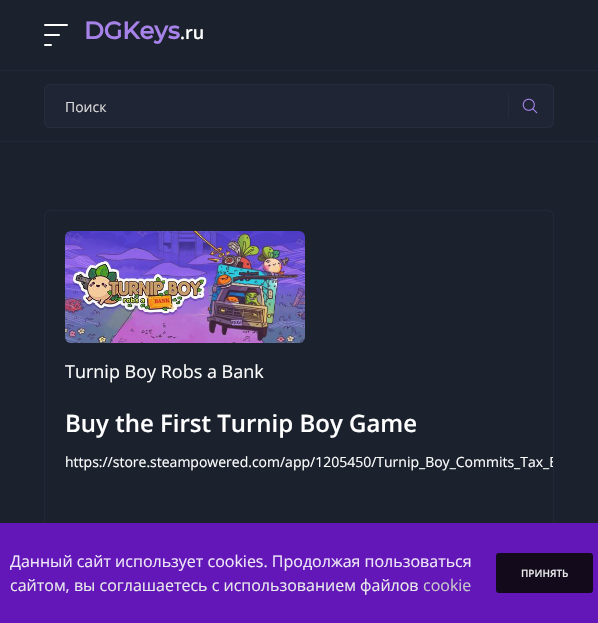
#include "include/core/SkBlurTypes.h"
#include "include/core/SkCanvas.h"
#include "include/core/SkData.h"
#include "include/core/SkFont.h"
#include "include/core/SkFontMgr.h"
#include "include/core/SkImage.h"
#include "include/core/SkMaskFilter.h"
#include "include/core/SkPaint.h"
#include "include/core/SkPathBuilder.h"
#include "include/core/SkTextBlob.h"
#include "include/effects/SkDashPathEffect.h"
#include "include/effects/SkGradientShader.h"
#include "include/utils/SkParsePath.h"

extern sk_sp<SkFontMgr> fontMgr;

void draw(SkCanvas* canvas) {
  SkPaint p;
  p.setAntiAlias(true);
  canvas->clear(SkColorSetRGB(27, 34, 46));
  p.setColor(SkColorSetRGB(35, 40, 57));
  canvas->drawRect(SkRect::MakeLTRB(0, 70, 598, 71), p);
  p.setColor(SK_ColorWHITE);
  canvas->drawRoundRect(SkRect::MakeLTRB(44, 24, 68, 26), 1, 1, p);
  canvas->drawRoundRect(SkRect::MakeLTRB(44, 34, 60, 36), 1, 1, p);
  canvas->drawRoundRect(SkRect::MakeLTRB(44, 44, 52, 46), 1, 1, p);
  p.setColor(SkColorSetRGB(35, 40, 57));
  canvas->drawRect(SkRect::MakeLTRB(0, 141, 598, 142), p);
  p.setColor(SkColorSetRGB(31, 37, 52));
  canvas->drawRoundRect(SkRect::MakeLTRB(44.5f, 84.5f, 553.5f, 127.5f), 5.5f, 5.5f, p);
  p.setStyle(SkPaint::kStroke_Style);
  p.setStrokeWidth(1);
  p.setColor(SkColorSetRGB(39, 43, 63));
  canvas->drawRoundRect(SkRect::MakeLTRB(44.5f, 84.5f, 553.5f, 127.5f), 5.5f, 5.5f, p);
  p.setStyle(SkPaint::kFill_Style);
  canvas->drawRect(SkRect::MakeLTRB(508, 94, 509, 118), p);
  canvas->drawImageRect(SkImages::DeferredFromEncodedData(SkData::MakeFromFileName("images/1.png")), SkRect::MakeLTRB(522, 98, 538, 114), SkSamplingOptions());
  p.setStyle(SkPaint::kStroke_Style);
  p.setColor(SkColorSetRGB(35, 40, 57));
  canvas->drawRoundRect(SkRect::MakeLTRB(44.5f, 210.5f, 553.5f, 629.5f), 5.5f, 5.5f, p);
  canvas->drawImageRect(SkImages::DeferredFromEncodedData(SkData::MakeFromFileName("images/2.png")), SkRect::MakeLTRB(65, 231, 305, 343), SkSamplingOptions());
  p.setStyle(SkPaint::kFill_Style);
  p.setColor(SkColorSetARGB(230, 106, 21, 199));
  canvas->drawRect(SkRect::MakeLTRB(0, 523, 598, 623), p);
  p.setColor(SkColorSetRGB(19, 11, 27));
  canvas->drawRoundRect(SkRect::MakeLTRB(496, 553, 593, 593), 3, 3, p);
  SkFont font1(fontMgr->matchFamilyStyle("Montserrat", SkFontStyle::Bold()), 24);
  font1.setSubpixel(true);
  p.setColor(SkColorSetRGB(167, 130, 233));
  canvas->drawString("DGKeys", 84, 39, font1, p);
  SkFont font2(fontMgr->matchFamilyStyle("Open Sans", SkFontStyle(600, SkFontStyle::kNormal_Width, SkFontStyle::kUpright_Slant)), 18);
  font2.setSubpixel(true);
  p.setColor(SK_ColorWHITE);
  canvas->drawString(".ru", 180, 39, font2, p);
  SkFont font3(fontMgr->matchFamilyStyle("Open Sans", SkFontStyle::Normal()), 14);
  font3.setSubpixel(true);
  p.setColor(SkColorSetRGB(219, 218, 218));
  canvas->drawString("Поиск", 65, 112, font3, p);
  SkFont font4(fontMgr->matchFamilyStyle("Open Sans", SkFontStyle::Normal()), 18);
  font4.setSubpixel(true);
  p.setColor(SK_ColorWHITE);
  canvas->drawString("Turnip Boy Robs a Bank", 65, 378, font4, p);
  SkFont font5(fontMgr->matchFamilyStyle("Open Sans", SkFontStyle(600, SkFontStyle::kNormal_Width, SkFontStyle::kUpright_Slant)), 24);
  font5.setSubpixel(true);
  canvas->drawString("Buy the First Turnip Boy Game", 65, 432, font5, p);
  canvas->save();
  canvas->clipPath(SkPathBuilder().moveTo(50, 211).lineTo(548, 211).cubicTo(551, 211, 553, 213, 553, 216).lineTo(553, 1677).cubicTo(553, 1680, 551, 1682, 548, 1682).lineTo(50, 1682).cubicTo(47, 1682, 45, 1680, 45, 1677).lineTo(45, 216).cubicTo(45, 213, 47, 211, 50, 211).close().detach(), true);
  canvas->drawString("https://store.steampowered.com/app/1205450/Turnip_Boy_Commits_Tax_E", 65, 467, font3, p);
  canvas->restore();
  SkFont font6(fontMgr->matchFamilyStyle("Open Sans", SkFontStyle::Normal()), 16);
  font6.setSubpixel(true);
  p.setColor(SkColorSetRGB(239, 232, 248));
  canvas->drawString("Данный сайт использует cookies. Продолжая пользоваться", 10, 567, font6, p);
  p.setColor(SkColorSetRGB(232, 233, 234));
  canvas->drawString("сайтом, вы соглашаетесь с использованием файлов", 10, 591, font6, p);
  p.setColor(SkColorSetRGB(200, 200, 201));
  canvas->drawString("cookie", 423, 591, font6, p);
  SkFont font7(fontMgr->matchFamilyStyle("Open Sans", SkFontStyle(600, SkFontStyle::kNormal_Width, SkFontStyle::kUpright_Slant)), 10);
  font7.setSubpixel(true);
  p.setColor(SkColorSetRGB(232, 233, 234));
  canvas->drawString("ПРИНЯТЬ", 521, 577, font7, p);
}
